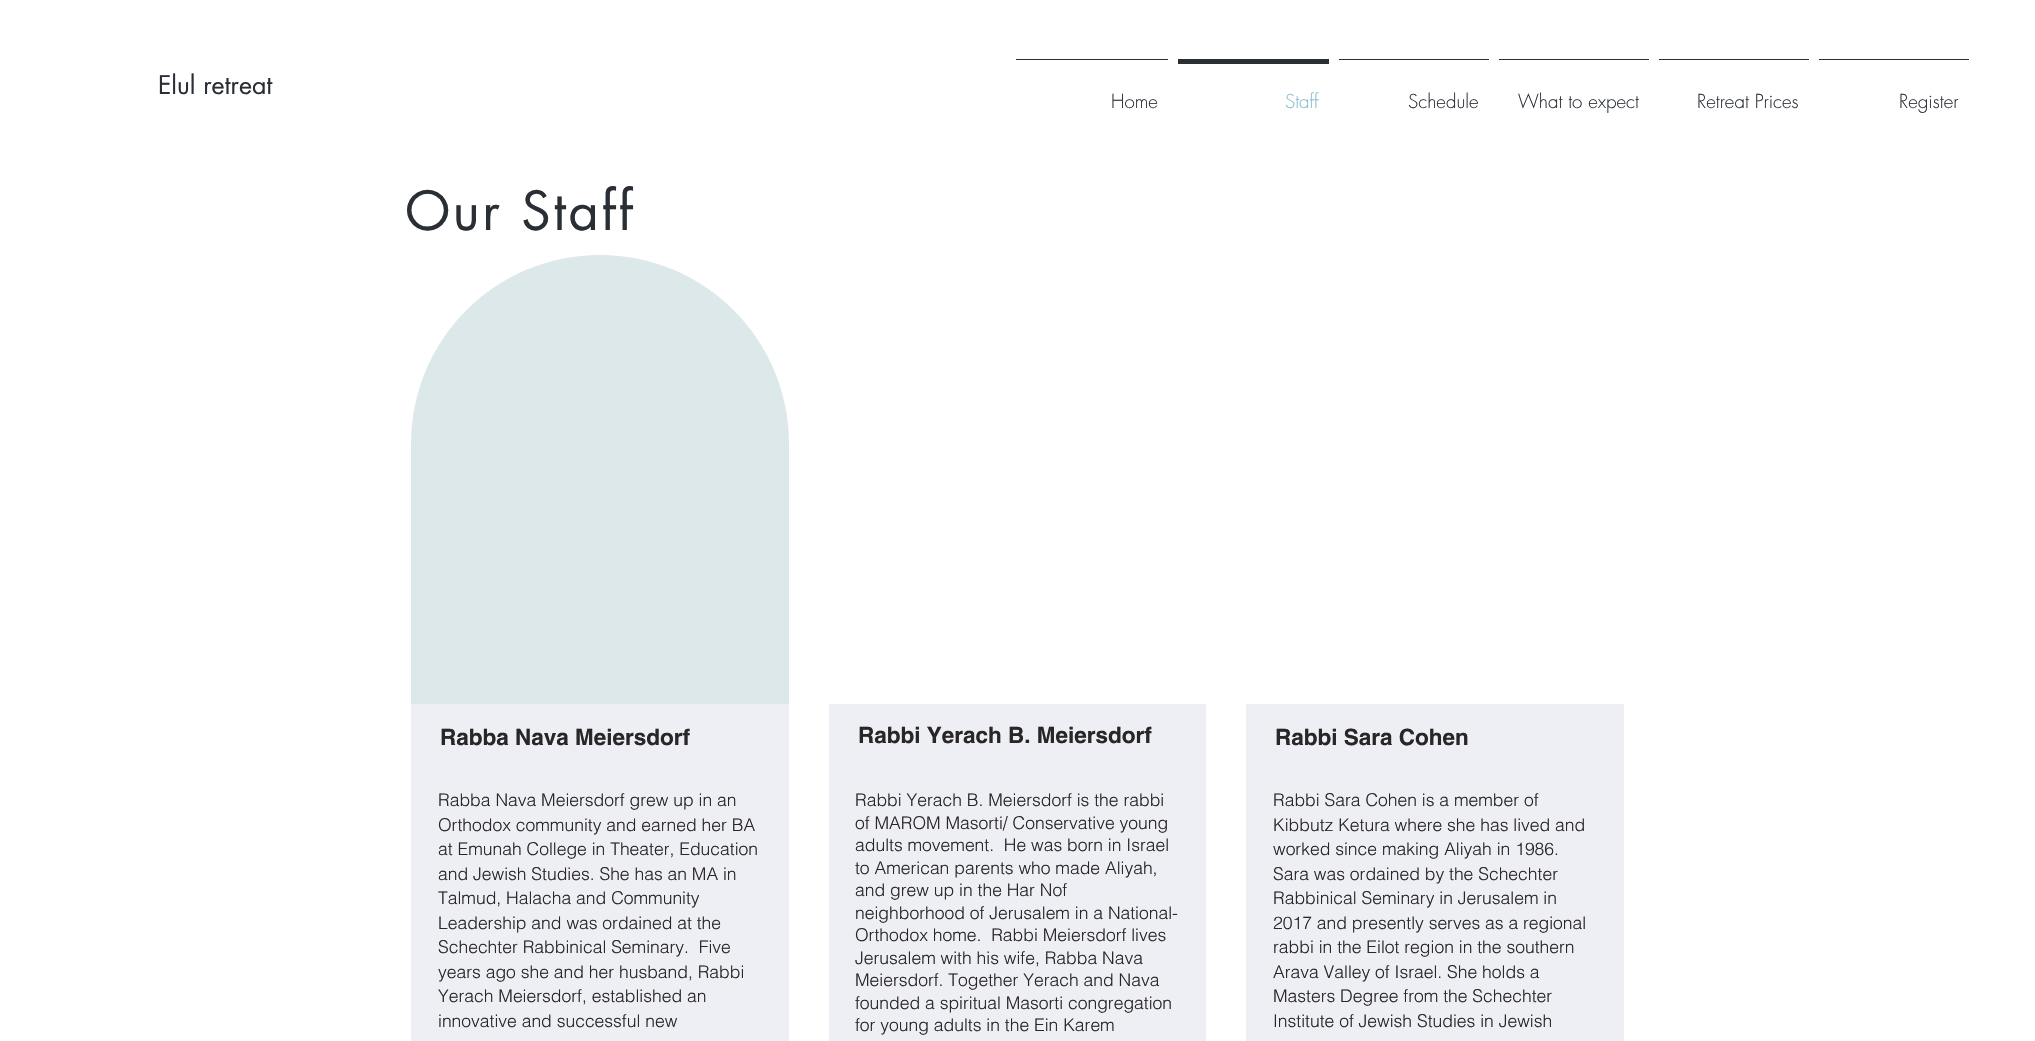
#include "include/core/SkBlurTypes.h"
#include "include/core/SkCanvas.h"
#include "include/core/SkData.h"
#include "include/core/SkFont.h"
#include "include/core/SkFontMgr.h"
#include "include/core/SkImage.h"
#include "include/core/SkMaskFilter.h"
#include "include/core/SkPaint.h"
#include "include/core/SkPathBuilder.h"
#include "include/core/SkTextBlob.h"
#include "include/effects/SkDashPathEffect.h"
#include "include/effects/SkGradientShader.h"
#include "include/utils/SkParsePath.h"

extern sk_sp<SkFontMgr> fontMgr;

void draw(SkCanvas* canvas) {
  SkPaint p;
  p.setAntiAlias(true);
  auto spacedText = [&](const char* s, float x, float y, const SkFont& font, const SkPaint& ink, float letter, float word) {
    std::vector<SkGlyphID> glyphs(font.countText(s, strlen(s), SkTextEncoding::kUTF8));
    std::vector<float> xs(glyphs.size());
    font.textToGlyphs(s, strlen(s), SkTextEncoding::kUTF8, glyphs);
    font.getXPos(glyphs, xs, x);
    float extra = 0;
    for (size_t i = 0; i < glyphs.size(); i++) {
      xs[i] += extra;
      extra += letter + word * (glyphs[i] == font.unicharToGlyph(' '));
    }
    canvas->drawTextBlob(SkTextBlob::MakeFromPosHGlyphs(glyphs, xs, y, font), 0, 0, ink);
  };
  canvas->clear(SK_ColorWHITE);
  p.setColor(SkColorSetRGB(42, 47, 54));
  canvas->drawRect(SkRect::MakeLTRB(1016, 59, 1168, 60), p);
  canvas->drawRect(SkRect::MakeLTRB(1178, 59, 1329, 64), p);
  canvas->drawRect(SkRect::MakeLTRB(1339, 59, 1489, 60), p);
  canvas->drawRect(SkRect::MakeLTRB(1499, 59, 1649, 60), p);
  canvas->drawRect(SkRect::MakeLTRB(1659, 59, 1809, 60), p);
  canvas->drawRect(SkRect::MakeLTRB(1819, 59, 1969, 60), p);
  p.setColor(SkColorSetRGB(221, 232, 235));
  canvas->drawPath(SkPathBuilder().moveTo(600, 255).cubicTo(704.5f, 255, 789, 339.5f, 789, 444).lineTo(789, 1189).lineTo(411, 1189).lineTo(411, 444).cubicTo(411, 339.5f, 495.5f, 255, 600, 255).close().detach(), p);
  p.setColor(SkColorSetRGB(238, 238, 245));
  canvas->drawRect(SkRect::MakeLTRB(411, 704, 789, 1041), p);
  canvas->drawRect(SkRect::MakeLTRB(829, 704, 1206, 1041), p);
  canvas->drawRect(SkRect::MakeLTRB(1246, 704, 1624, 1041), p);
  SkFont font1(fontMgr->matchFamilyStyle("futura", SkFontStyle::Normal()), 25);
  font1.setSubpixel(true);
  p.setColor(SkColorSetRGB(42, 47, 54));
  canvas->drawString("Elul retreat", 158, 94, font1, p);
  SkFont font2(fontMgr->matchFamilyStyle("futura", SkFontStyle(300, SkFontStyle::kNormal_Width, SkFontStyle::kUpright_Slant)), 18.75f);
  font2.setSubpixel(true);
  canvas->drawString("Home", 1111, 108, font2, p);
  p.setColor(SkColorSetRGB(138, 189, 207));
  canvas->drawString("Staff", 1285, 108, font2, p);
  p.setColor(SkColorSetRGB(42, 47, 54));
  canvas->drawString("Schedule", 1408, 108, font2, p);
  canvas->drawString("What to expect", 1518, 108, font2, p);
  canvas->drawString("Retreat Prices", 1697, 108, font2, p);
  canvas->drawString("Register", 1899, 108, font2, p);
  SkFont font3(fontMgr->matchFamilyStyle("futura", SkFontStyle::Normal()), 52.5f);
  font3.setSubpixel(true);
  spacedText("Our Staff", 405, 230, font3, p, 2.6f, 0);
  SkFont font4(fontMgr->matchFamilyStyle("helvetica", SkFontStyle::Bold()), 22.5f);
  font4.setSubpixel(true);
  p.setColor(SkColorSetRGB(40, 38, 38));
  canvas->drawString("Rabba Nava Meiersdorf", 440, 745, font4, p);
  SkFont font5(fontMgr->matchFamilyStyle("helvetica", SkFontStyle(300, SkFontStyle::kNormal_Width, SkFontStyle::kUpright_Slant)), 17.5f);
  font5.setSubpixel(true);
  canvas->drawString("Rabba Nava Meiersdorf grew up in an", 438, 806, font5, p);
  canvas->drawString("Orthodox community and earned her BA", 438, 831, font5, p);
  canvas->drawString("at Emunah College in Theater, Education", 438, 855, font5, p);
  canvas->drawString("and Jewish Studies. She has an MA in", 438, 880, font5, p);
  canvas->drawString("Talmud, Halacha and Community", 438, 904, font5, p);
  canvas->drawString("Leadership and was ordained at the", 438, 929, font5, p);
  canvas->drawString("Schechter Rabbinical Seminary.  Five", 438, 953, font5, p);
  canvas->drawString("years ago she and her husband, Rabbi", 438, 978, font5, p);
  canvas->drawString("Yerach Meiersdorf, established an", 438, 1002, font5, p);
  canvas->drawString("innovative and successful new", 438, 1027, font5, p);
  canvas->drawString("Rabbi Yerach B. Meiersdorf", 858, 743, font4, p);
  canvas->drawString("Rabbi Yerach B. Meiersdorf is the rabbi", 855, 806, font5, p);
  canvas->drawString("of MAROM Masorti/ Conservative young", 855, 829, font5, p);
  canvas->drawString("adults movement.  He was born in Israel", 855, 851, font5, p);
  canvas->drawString("to American parents who made Aliyah,", 855, 874, font5, p);
  canvas->drawString("and grew up in the Har Nof", 855, 896, font5, p);
  canvas->drawString("neighborhood of Jerusalem in a National-", 855, 919, font5, p);
  canvas->drawString("Orthodox home.  Rabbi Meiersdorf lives", 855, 941, font5, p);
  canvas->drawString("Jerusalem with his wife, Rabba Nava", 855, 964, font5, p);
  canvas->drawString("Meiersdorf. Together Yerach and Nava", 855, 986, font5, p);
  canvas->drawString("founded a spiritual Masorti congregation", 855, 1009, font5, p);
  canvas->drawString("for young adults in the Ein Karem", 855, 1031, font5, p);
  canvas->drawString("Rabbi Sara Cohen", 1275, 745, font4, p);
  canvas->drawString("Rabbi Sara Cohen is a member of", 1273, 806, font5, p);
  canvas->drawString("Kibbutz Ketura where she has lived and", 1273, 831, font5, p);
  canvas->drawString("worked since making Aliyah in 1986.", 1273, 855, font5, p);
  canvas->drawString("Sara was ordained by the Schechter", 1273, 880, font5, p);
  canvas->drawString("Rabbinical Seminary in Jerusalem in", 1273, 904, font5, p);
  canvas->drawString("2017 and presently serves as a regional", 1273, 929, font5, p);
  canvas->drawString("rabbi in the Eilot region in the southern", 1273, 953, font5, p);
  canvas->drawString("Arava Valley of Israel. She holds a", 1273, 978, font5, p);
  canvas->drawString("Masters Degree from the Schechter", 1273, 1002, font5, p);
  canvas->drawString("Institute of Jewish Studies in Jewish", 1273, 1027, font5, p);
}
